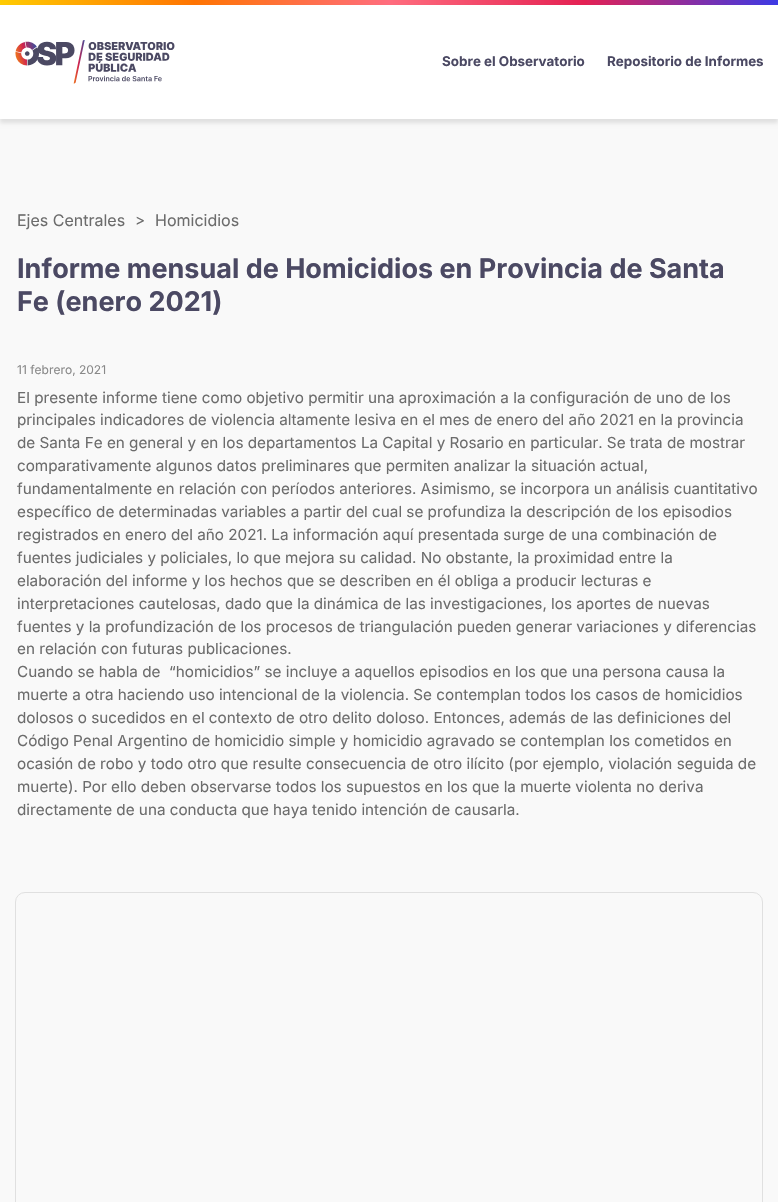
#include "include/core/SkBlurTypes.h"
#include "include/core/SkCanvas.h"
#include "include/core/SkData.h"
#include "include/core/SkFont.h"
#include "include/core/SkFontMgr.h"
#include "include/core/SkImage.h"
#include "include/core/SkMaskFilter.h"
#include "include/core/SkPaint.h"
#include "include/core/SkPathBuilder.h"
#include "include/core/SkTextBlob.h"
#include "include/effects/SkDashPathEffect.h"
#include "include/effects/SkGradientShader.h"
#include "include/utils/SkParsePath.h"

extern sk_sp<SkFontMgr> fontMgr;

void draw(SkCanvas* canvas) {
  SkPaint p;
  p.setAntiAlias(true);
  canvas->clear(SkColorSetRGB(249, 249, 249));
  p.setColor(SkColorSetARGB(26, 0, 0, 0));
  p.setMaskFilter(SkMaskFilter::MakeBlur(kNormal_SkBlurStyle, 2));
  canvas->drawRect(SkRect::MakeLTRB(0, 1, 778, 123), p);
  p.setMaskFilter(nullptr);
  p.setColor(SK_ColorWHITE);
  canvas->drawRect(SkRect::MakeLTRB(0, 5, 778, 119), p);
  {
    const SkColor colors[] = {SkColorSetRGB(60, 58, 229), SkColorSetRGB(228, 33, 83), SkColorSetRGB(255, 109, 126), SkColorSetRGB(255, 116, 2), SkColorSetRGB(255, 203, 2)};
    const float stops[] = {0, 0.25f, 0.5f, 0.75f, 1};
    const SkPoint ends[] = {{778, 0.3f}, {0, 1.7f}};
    p.setShader(SkGradientShader::MakeLinear(ends, colors, stops, 5, SkTileMode::kClamp));
    p.setAlpha(255);
  }
  canvas->drawRect(SkRect::MakeLTRB(0, 0, 778, 5), p);
  canvas->drawImageRect(SkImages::DeferredFromEncodedData(SkData::MakeFromFileName("images/1.png")), SkRect::MakeLTRB(15, 40, 175, 84), SkSamplingOptions());
  p.setStyle(SkPaint::kStroke_Style);
  p.setStrokeWidth(1);
  p.setShader(nullptr);
  p.setColor(SkColorSetRGB(224, 224, 224));
  canvas->drawRoundRect(SkRect::MakeLTRB(15.5f, 892.5f, 762.5f, 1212.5f), 9.5f, 9.5f, p);
  SkFont font1(fontMgr->matchFamilyStyle("Inter", SkFontStyle::Bold()), 13.4f);
  font1.setSubpixel(true);
  p.setStyle(SkPaint::kFill_Style);
  p.setColor(SkColorSetRGB(75, 73, 99));
  canvas->drawString("Sobre el Observatorio", 442, 66, font1, p);
  canvas->drawString("Repositorio de Informes", 607, 66, font1, p);
  SkFont font2(fontMgr->matchFamilyStyle("Inter", SkFontStyle::Normal()), 16);
  font2.setSubpixel(true);
  p.setColor(SkColorSetRGB(108, 108, 108));
  canvas->drawString("Ejes Centrales", 17, 226, font2, p);
  SkFont font3(fontMgr->matchFamilyStyle("Inter", SkFontStyle::Normal()), 15.25f);
  font3.setSubpixel(true);
  canvas->drawString(">", 135, 225, font3, p);
  canvas->drawString("Homicidios", 155, 226, font2, p);
  SkFont font4(fontMgr->matchFamilyStyle("Inter", SkFontStyle::Bold()), 27);
  font4.setSubpixel(true);
  p.setColor(SkColorSetRGB(75, 73, 99));
  canvas->drawString("Informe mensual de Homicidios en Provincia de Santa", 17, 278, font4, p);
  canvas->drawString("Fe (enero 2021)", 17, 311, font4, p);
  SkFont font5(fontMgr->matchFamilyStyle("Inter", SkFontStyle::Normal()), 12);
  font5.setSubpixel(true);
  p.setColor(SkColorSetRGB(137, 137, 137));
  canvas->drawString("11 febrero, 2021", 17, 374, font5, p);
  p.setColor(SkColorSetRGB(108, 108, 108));
  canvas->drawString("El presente informe tiene como objetivo permitir una aproximación a la configuración de uno de los", 17, 403, font3, p);
  canvas->drawString("principales indicadores de violencia altamente lesiva en el mes de enero del año 2021 en la provincia", 17, 425, font3, p);
  canvas->drawString("de Santa Fe en general y en los departamentos La Capital y Rosario en particular. Se trata de mostrar", 17, 448, font3, p);
  canvas->drawString("comparativamente algunos datos preliminares que permiten analizar la situación actual,", 17, 471, font3, p);
  canvas->drawString("fundamentalmente en relación con períodos anteriores. Asimismo, se incorpora un análisis cuantitativo", 17, 494, font3, p);
  canvas->drawString("específico de determinadas variables a partir del cual se profundiza la descripción de los episodios", 17, 517, font3, p);
  canvas->drawString("registrados en enero del año 2021. La información aquí presentada surge de una combinación de", 17, 540, font3, p);
  canvas->drawString("fuentes judiciales y policiales, lo que mejora su calidad. No obstante, la proximidad entre la", 17, 563, font3, p);
  canvas->drawString("elaboración del informe y los hechos que se describen en él obliga a producir lecturas e", 17, 586, font3, p);
  canvas->drawString("interpretaciones cautelosas, dado que la dinámica de las investigaciones, los aportes de nuevas", 17, 609, font3, p);
  canvas->drawString("fuentes y la profundización de los procesos de triangulación pueden generar variaciones y diferencias", 17, 632, font3, p);
  canvas->drawString("en relación con futuras publicaciones.", 17, 654, font3, p);
  canvas->drawString("Cuando se habla de  “homicidios” se incluye a aquellos episodios en los que una persona causa la", 17, 677, font3, p);
  canvas->drawString("muerte a otra haciendo uso intencional de la violencia. Se contemplan todos los casos de homicidios", 17, 700, font3, p);
  canvas->drawString("dolosos o sucedidos en el contexto de otro delito doloso. Entonces, además de las definiciones del", 17, 723, font3, p);
  canvas->drawString("Código Penal Argentino de homicidio simple y homicidio agravado se contemplan los cometidos en", 17, 746, font3, p);
  canvas->drawString("ocasión de robo y todo otro que resulte consecuencia de otro ilícito (por ejemplo, violación seguida de", 17, 769, font3, p);
  canvas->drawString("muerte). Por ello deben observarse todos los supuestos en los que la muerte violenta no deriva", 17, 792, font3, p);
  canvas->drawString("directamente de una conducta que haya tenido intención de causarla.", 17, 815, font3, p);
}
